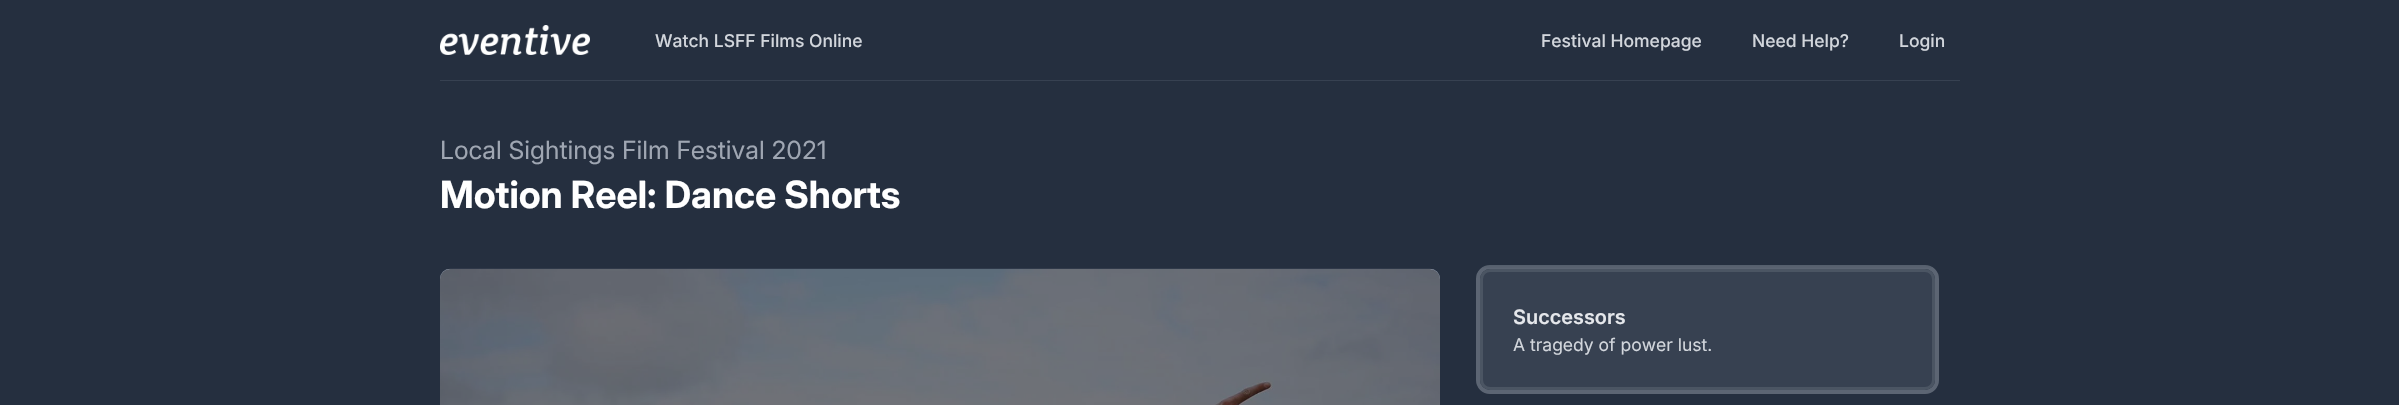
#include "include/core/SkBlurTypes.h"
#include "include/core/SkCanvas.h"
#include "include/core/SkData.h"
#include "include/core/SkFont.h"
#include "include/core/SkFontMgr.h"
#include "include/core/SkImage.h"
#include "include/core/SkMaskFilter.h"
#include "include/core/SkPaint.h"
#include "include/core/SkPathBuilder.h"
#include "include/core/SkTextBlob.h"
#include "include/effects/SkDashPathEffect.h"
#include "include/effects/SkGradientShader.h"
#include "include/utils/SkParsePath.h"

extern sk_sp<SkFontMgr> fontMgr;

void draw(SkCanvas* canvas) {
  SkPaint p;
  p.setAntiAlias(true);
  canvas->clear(SkColorSetRGB(37, 47, 63));
  p.setColor(SkColorSetRGB(55, 65, 81));
  canvas->drawRect(SkRect::MakeLTRB(440, 80, 1960, 81), p);
  canvas->drawImageRect(SkImages::DeferredFromEncodedData(SkData::MakeFromFileName("images/1.png")), SkRect::MakeLTRB(440, 25, 590, 55), SkSamplingOptions());
  canvas->drawImageRect(SkImages::DeferredFromEncodedData(SkData::MakeFromFileName("images/2.png")), SkRect::MakeLTRB(440, 268, 1440, 405), SkSamplingOptions());
  p.setColor(SkColorSetARGB(128, 0, 0, 0));
  canvas->drawRoundRect(SkRect::MakeLTRB(440, 269, 1440, 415), 10, 10, p);
  p.setStyle(SkPaint::kStroke_Style);
  p.setStrokeWidth(4);
  p.setColor(SkColorSetRGB(92, 101, 115));
  canvas->drawRoundRect(SkRect::MakeLTRB(1478, 267, 1937, 392), 12, 12, p);
  p.setStyle(SkPaint::kFill_Style);
  {
    const SkColor colors[] = {SkColorSetARGB(0, 37, 47, 63), SkColorSetRGB(37, 47, 63)};
    const float stops[] = {0, 1};
    const SkPoint ends[] = {{1700, 269}, {1700, 239}};
    p.setShader(SkGradientShader::MakeLinear(ends, colors, stops, 2, SkTileMode::kClamp));
    p.setAlpha(255);
  }
  canvas->drawRect(SkRect::MakeLTRB(1483, 265, 1932, 268), p);
  p.setShader(nullptr);
  p.setColor(SkColorSetRGB(55, 65, 81));
  canvas->drawRoundRect(SkRect::MakeLTRB(1481.5f, 270.5f, 1933.5f, 388.5f), 8.5f, 8.5f, p);
  p.setStyle(SkPaint::kStroke_Style);
  p.setStrokeWidth(3);
  p.setColor(SkColorSetRGB(75, 85, 99));
  canvas->drawRoundRect(SkRect::MakeLTRB(1481.5f, 270.5f, 1933.5f, 388.5f), 8.5f, 8.5f, p);
  SkFont font1(fontMgr->matchFamilyStyle("Inter", SkFontStyle(500, SkFontStyle::kNormal_Width, SkFontStyle::kUpright_Slant)), 17.5f);
  font1.setSubpixel(true);
  p.setStyle(SkPaint::kFill_Style);
  p.setColor(SkColorSetRGB(210, 214, 220));
  canvas->drawString("Watch LSFF Films Online", 655, 47, font1, p);
  canvas->drawString("Festival Homepage", 1541, 47, font1, p);
  canvas->drawString("Need Help?", 1752, 47, font1, p);
  canvas->drawString("Login", 1899, 47, font1, p);
  SkFont font2(fontMgr->matchFamilyStyle("Inter", SkFontStyle::Normal()), 25);
  font2.setSubpixel(true);
  p.setColor(SkColorSetRGB(159, 166, 178));
  canvas->drawString("Local Sightings Film Festival 2021", 440, 159, font2, p);
  SkFont font3(fontMgr->matchFamilyStyle("Inter", SkFontStyle::Bold()), 37.5f);
  font3.setSubpixel(true);
  p.setColor(SK_ColorWHITE);
  canvas->drawString("Motion Reel: Dance Shorts", 440, 208, font3, p);
  SkFont font4(fontMgr->matchFamilyStyle("Inter", SkFontStyle(600, SkFontStyle::kNormal_Width, SkFontStyle::kUpright_Slant)), 20);
  font4.setSubpixel(true);
  p.setColor(SkColorSetRGB(229, 231, 235));
  canvas->drawString("Successors", 1513, 324, font4, p);
  SkFont font5(fontMgr->matchFamilyStyle("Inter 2", SkFontStyle::Normal()), 17.5f);
  font5.setSubpixel(true);
  p.setColor(SkColorSetRGB(210, 214, 220));
  canvas->drawString("A tragedy of power lust.", 1513, 351, font5, p);
}
